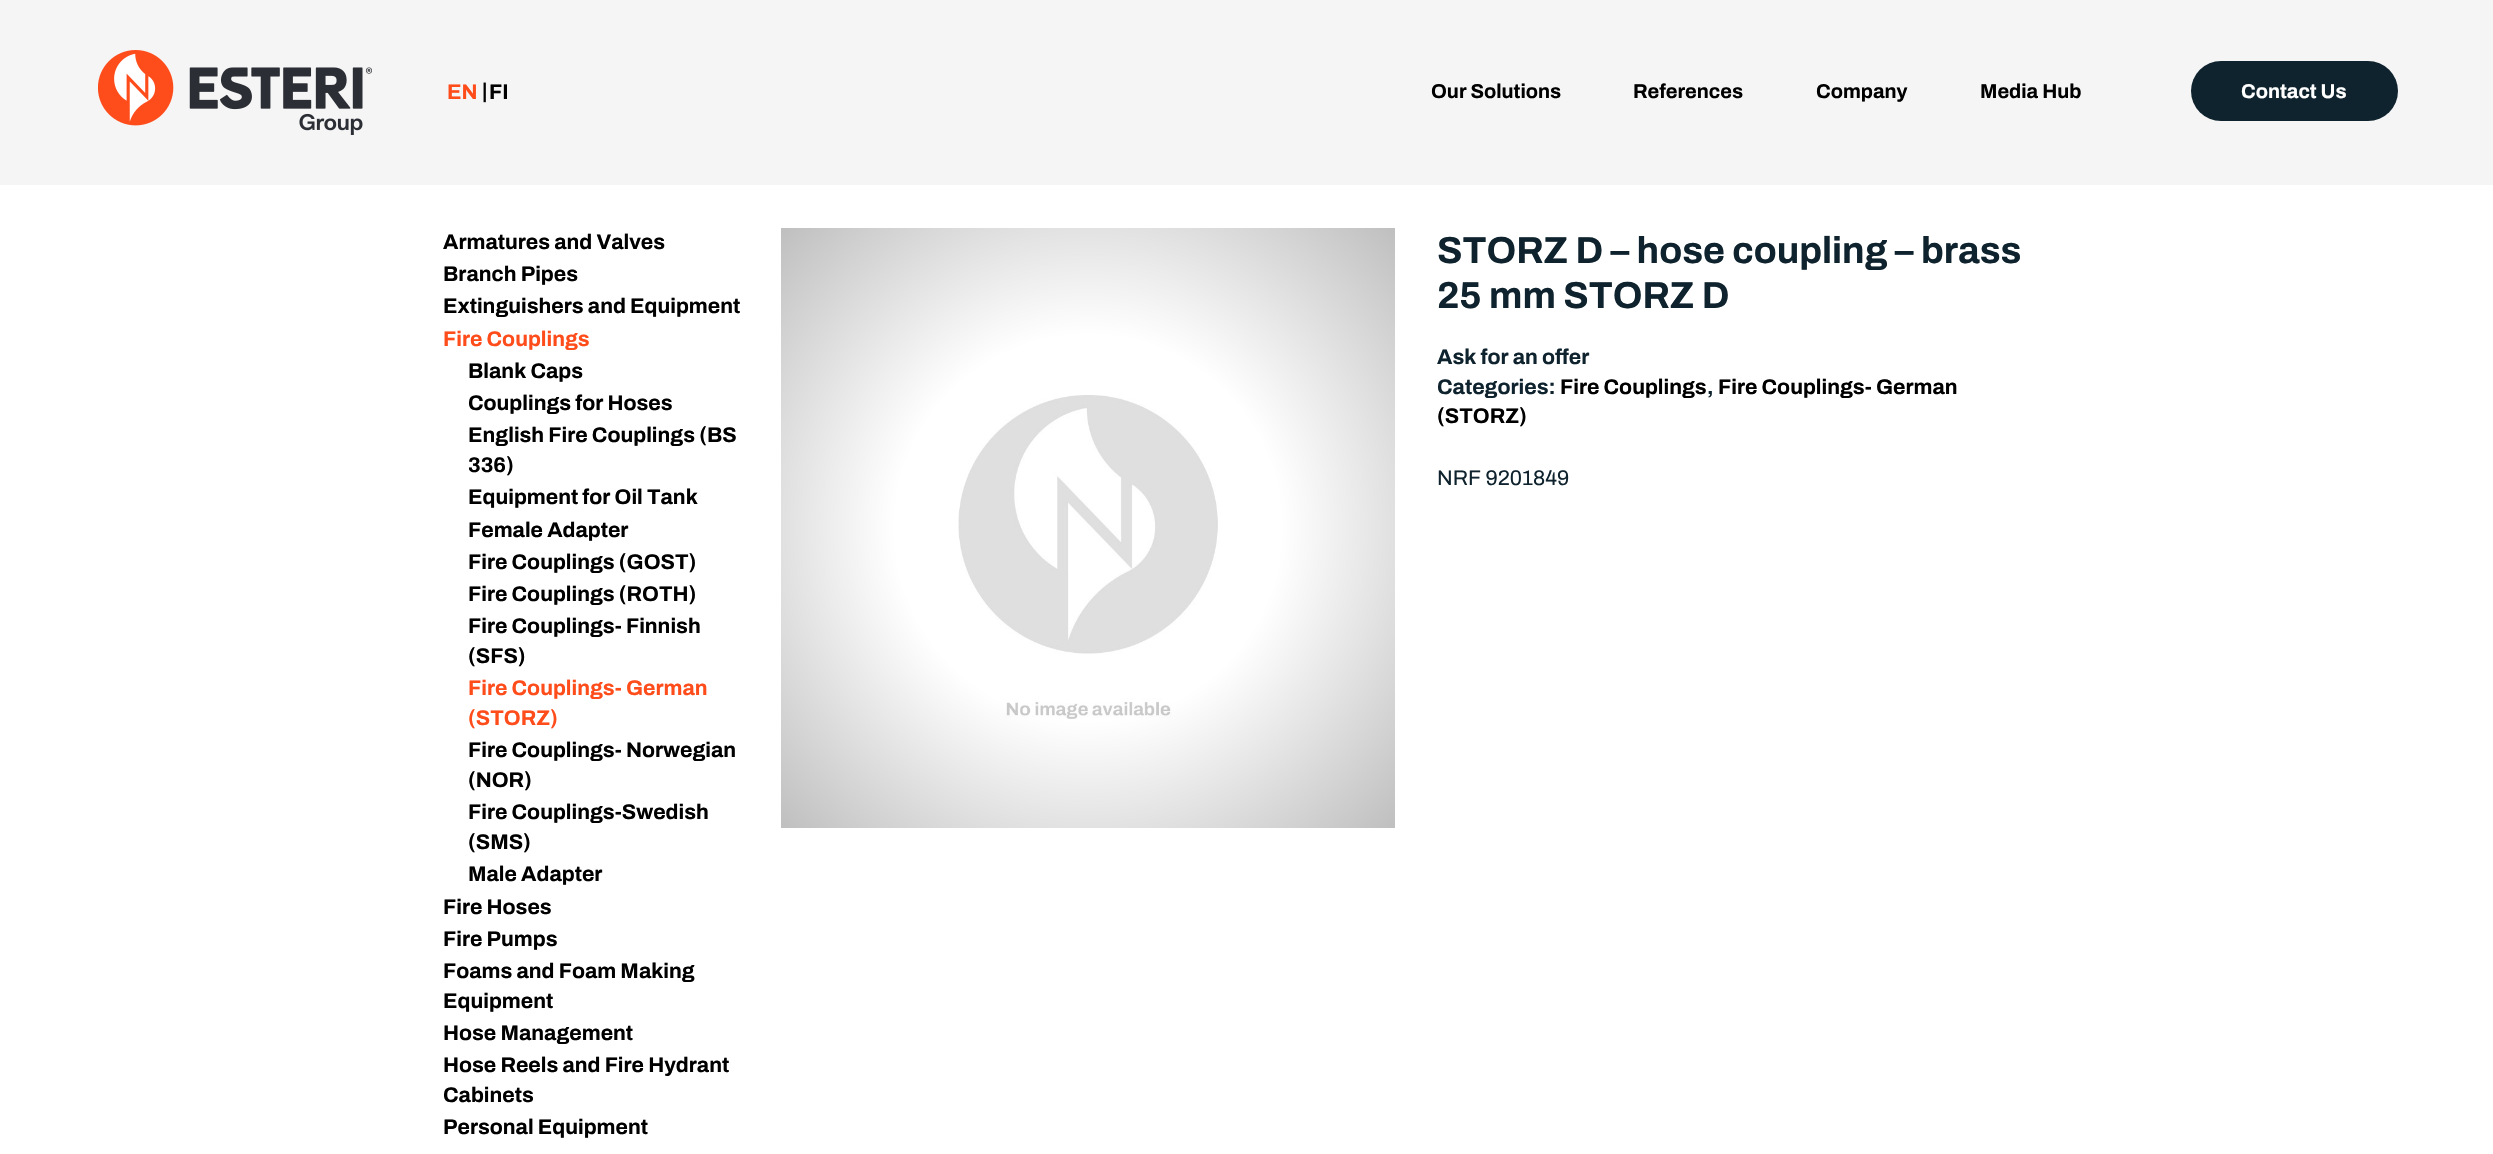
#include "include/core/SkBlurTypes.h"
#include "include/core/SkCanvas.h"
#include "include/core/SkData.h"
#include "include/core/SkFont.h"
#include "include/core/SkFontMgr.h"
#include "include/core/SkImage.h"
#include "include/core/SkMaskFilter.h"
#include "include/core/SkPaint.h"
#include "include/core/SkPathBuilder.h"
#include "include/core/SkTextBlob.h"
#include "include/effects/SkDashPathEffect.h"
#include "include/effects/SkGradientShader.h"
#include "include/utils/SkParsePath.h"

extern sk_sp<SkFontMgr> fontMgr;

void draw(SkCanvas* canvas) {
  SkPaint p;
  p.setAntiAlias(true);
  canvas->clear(SkColorSetRGB(245, 245, 245));
  canvas->drawImageRect(SkImages::DeferredFromEncodedData(SkData::MakeFromFileName("images/1.png")), SkRect::MakeLTRB(98, 50, 372, 135), SkSamplingOptions());
  p.setColor(SkColorSetRGB(15, 35, 46));
  canvas->drawRoundRect(SkRect::MakeLTRB(2191, 61, 2398, 121), 30, 30, p);
  p.setColor(SK_ColorWHITE);
  canvas->drawRect(SkRect::MakeLTRB(0, 185, 2493, 1154), p);
  canvas->drawImageRect(SkImages::DeferredFromEncodedData(SkData::MakeFromFileName("images/2.png")), SkRect::MakeLTRB(958, 395, 1218, 719), SkSamplingOptions());
  {
    const SkColor colors[] = {SkColorSetARGB(0, 0, 0, 0), SkColorSetARGB(64, 0, 0, 0)};
    const float stops[] = {0.45f, 1};
    p.setShader(SkGradientShader::MakeRadial({1088, 528}, 429, colors, stops, 2, SkTileMode::kClamp));
    p.setAlpha(255);
  }
  canvas->drawRect(SkRect::MakeLTRB(781, 228, 1395, 828), p);
  SkFont font1(fontMgr->matchFamilyStyle("Archivo", SkFontStyle::Bold()), 21.25f);
  font1.setSubpixel(true);
  p.setShader(nullptr);
  p.setColor(SkColorSetRGB(255, 76, 27));
  canvas->drawString("EN", 447, 99, font1, p);
  p.setColor(SK_ColorBLACK);
  canvas->drawString("|", 482, 98, font1, p);
  canvas->drawString("FI", 489, 99, font1, p);
  SkFont font2(fontMgr->matchFamilyStyle("Archivo", SkFontStyle::Bold()), 20);
  font2.setSubpixel(true);
  canvas->drawString("Our Solutions", 1431, 98, font2, p);
  canvas->drawString("References", 1633, 98, font2, p);
  canvas->drawString("Company", 1816, 98, font2, p);
  canvas->drawString("Media Hub", 1980, 98, font2, p);
  p.setColor(SK_ColorWHITE);
  canvas->drawString("Contact Us", 2241, 98, font2, p);
  p.setColor(SK_ColorBLACK);
  canvas->drawString("Armatures and Valves", 443, 249, font1, p);
  canvas->drawString("Branch Pipes", 443, 281, font1, p);
  canvas->drawString("Extinguishers and Equipment", 443, 313, font1, p);
  p.setColor(SkColorSetRGB(255, 76, 27));
  canvas->drawString("Fire Couplings", 443, 346, font1, p);
  p.setColor(SK_ColorBLACK);
  canvas->drawString("Blank Caps", 468, 378, font1, p);
  canvas->drawString("Couplings for Hoses", 468, 410, font1, p);
  canvas->drawString("English Fire Couplings (BS", 468, 442, font1, p);
  canvas->drawString("336)", 468, 472, font1, p);
  canvas->drawString("Equipment for Oil Tank", 468, 504, font1, p);
  canvas->drawString("Female Adapter", 468, 537, font1, p);
  canvas->drawString("Fire Couplings (GOST)", 468, 569, font1, p);
  canvas->drawString("Fire Couplings (ROTH)", 468, 601, font1, p);
  canvas->drawString("Fire Couplings- Finnish", 468, 633, font1, p);
  canvas->drawString("(SFS)", 468, 663, font1, p);
  p.setColor(SkColorSetRGB(255, 76, 27));
  canvas->drawString("Fire Couplings- German", 468, 695, font1, p);
  canvas->drawString("(STORZ)", 468, 725, font1, p);
  p.setColor(SK_ColorBLACK);
  canvas->drawString("Fire Couplings- Norwegian", 468, 757, font1, p);
  canvas->drawString("(NOR)", 468, 787, font1, p);
  canvas->drawString("Fire Couplings-Swedish", 468, 819, font1, p);
  canvas->drawString("(SMS)", 468, 849, font1, p);
  canvas->drawString("Male Adapter", 468, 881, font1, p);
  canvas->drawString("Fire Hoses", 443, 914, font1, p);
  canvas->drawString("Fire Pumps", 443, 946, font1, p);
  canvas->drawString("Foams and Foam Making", 443, 978, font1, p);
  canvas->drawString("Equipment", 443, 1008, font1, p);
  canvas->drawString("Hose Management", 443, 1040, font1, p);
  canvas->drawString("Hose Reels and Fire Hydrant", 443, 1072, font1, p);
  canvas->drawString("Cabinets", 443, 1102, font1, p);
  canvas->drawString("Personal Equipment", 443, 1134, font1, p);
  SkFont font3(fontMgr->matchFamilyStyle("Archivo", SkFontStyle::Bold()), 37.5f);
  font3.setSubpixel(true);
  p.setColor(SkColorSetRGB(15, 35, 46));
  canvas->drawString("STORZ D – hose coupling – brass", 1437, 263, font3, p);
  canvas->drawString("25 mm STORZ D", 1437, 308, font3, p);
  canvas->drawString("Ask for an offer", 1437, 364, font1, p);
  canvas->drawString("Categories:", 1437, 394, font1, p);
  p.setColor(SK_ColorBLACK);
  canvas->drawString("Fire Couplings", 1560, 394, font1, p);
  p.setColor(SkColorSetRGB(15, 35, 46));
  canvas->drawString(",", 1707, 394, font1, p);
  p.setColor(SK_ColorBLACK);
  canvas->drawString("Fire Couplings- German", 1718, 394, font1, p);
  canvas->drawString("(STORZ)", 1437, 423, font1, p);
  SkFont font4(fontMgr->matchFamilyStyle("Archivo", SkFontStyle::Normal()), 21.25f);
  font4.setSubpixel(true);
  p.setColor(SkColorSetRGB(15, 35, 46));
  canvas->drawString("NRF 9201849", 1437, 485, font4, p);
}
